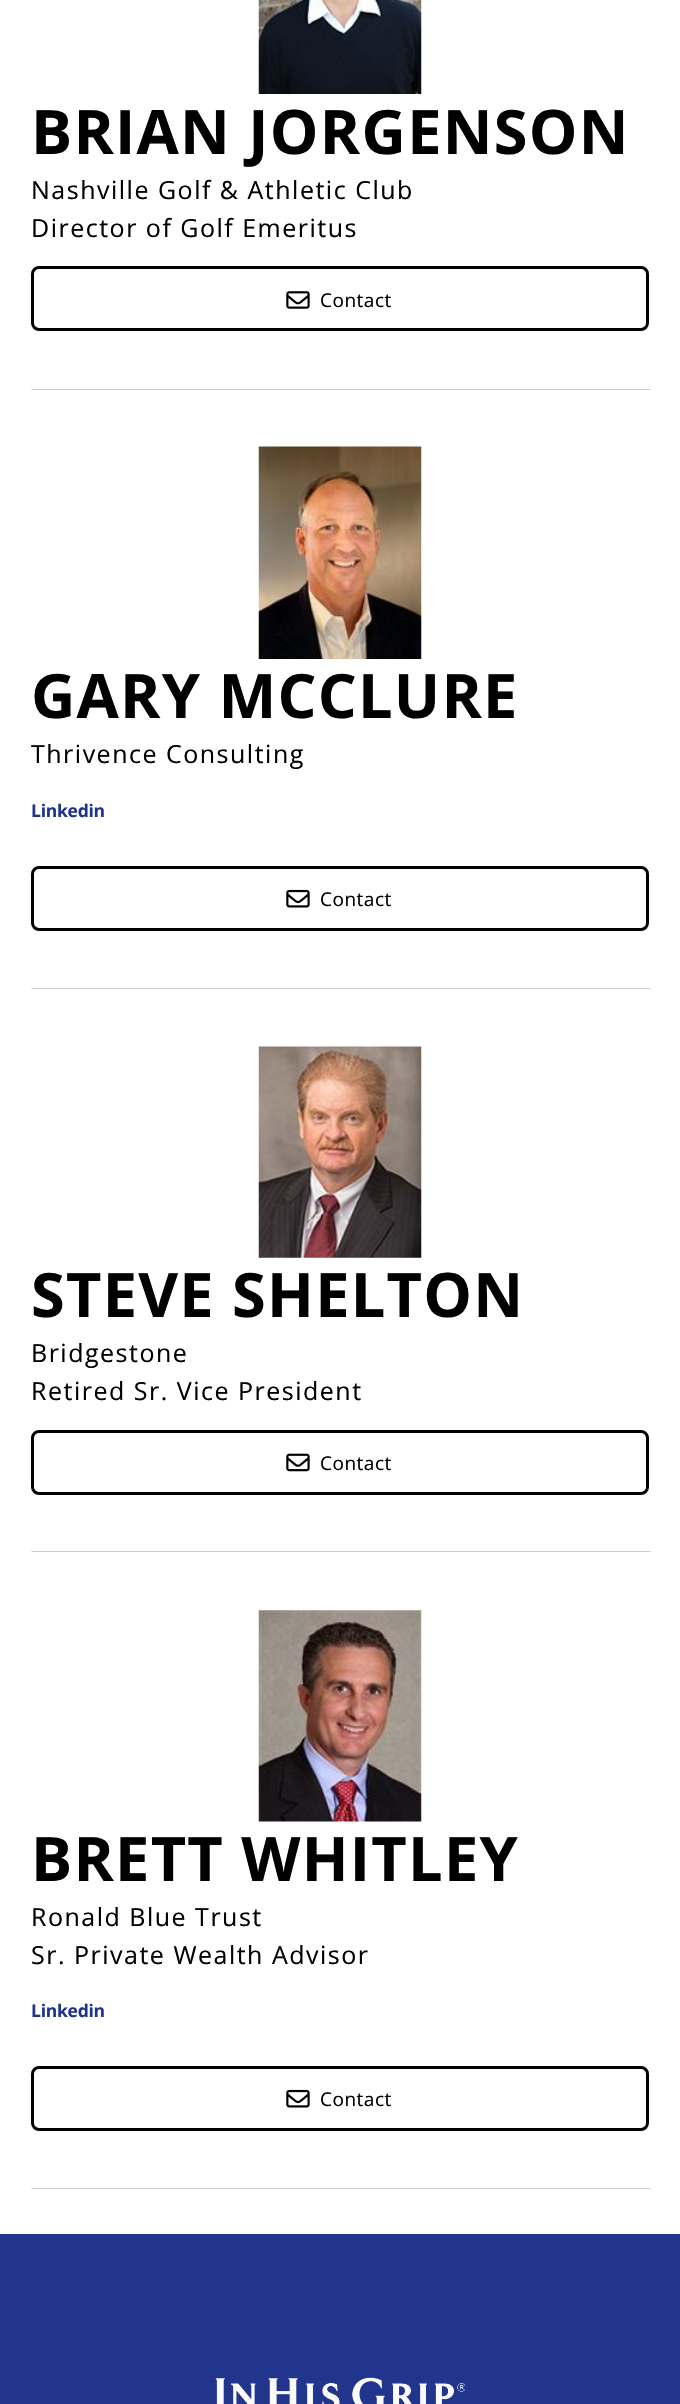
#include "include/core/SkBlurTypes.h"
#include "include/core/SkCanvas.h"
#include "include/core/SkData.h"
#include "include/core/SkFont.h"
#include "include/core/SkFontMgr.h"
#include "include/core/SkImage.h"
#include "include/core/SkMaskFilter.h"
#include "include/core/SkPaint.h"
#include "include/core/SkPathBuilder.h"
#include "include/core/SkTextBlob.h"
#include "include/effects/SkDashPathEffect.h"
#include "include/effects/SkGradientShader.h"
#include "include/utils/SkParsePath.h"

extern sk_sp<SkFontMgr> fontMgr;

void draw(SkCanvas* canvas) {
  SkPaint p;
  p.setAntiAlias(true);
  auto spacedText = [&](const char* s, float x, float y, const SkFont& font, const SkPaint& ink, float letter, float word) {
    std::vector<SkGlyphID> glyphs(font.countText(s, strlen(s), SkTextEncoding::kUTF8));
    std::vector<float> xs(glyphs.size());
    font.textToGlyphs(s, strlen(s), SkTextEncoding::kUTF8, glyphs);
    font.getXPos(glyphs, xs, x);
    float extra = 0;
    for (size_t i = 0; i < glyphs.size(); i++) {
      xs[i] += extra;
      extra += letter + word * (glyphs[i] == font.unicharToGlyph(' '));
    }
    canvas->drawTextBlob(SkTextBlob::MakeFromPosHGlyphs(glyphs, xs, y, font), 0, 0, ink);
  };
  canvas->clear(SK_ColorWHITE);
  canvas->drawImageRect(SkImages::DeferredFromEncodedData(SkData::MakeFromFileName("images/1.png")), SkRect::MakeLTRB(258, 0, 422, 94), SkSamplingOptions());
  p.setStyle(SkPaint::kStroke_Style);
  p.setStrokeWidth(3);
  p.setColor(SK_ColorBLACK);
  canvas->drawRoundRect(SkRect::MakeLTRB(32.5f, 267.5f, 647.5f, 329.5f), 6.5f, 6.5f, p);
  canvas->drawImageRect(SkImages::DeferredFromEncodedData(SkData::MakeFromFileName("images/2.png")), SkRect::MakeLTRB(286, 291, 310, 309), SkSamplingOptions());
  p.setStyle(SkPaint::kFill_Style);
  p.setColor(SkColorSetRGB(204, 204, 204));
  canvas->drawPath(SkPathBuilder().moveTo(651, 390).lineTo(31, 390).lineTo(32, 389).lineTo(650, 389).close().detach(), p);
  canvas->drawImageRect(SkImages::DeferredFromEncodedData(SkData::MakeFromFileName("images/3.png")), SkRect::MakeLTRB(258, 446, 422, 659), SkSamplingOptions());
  p.setStyle(SkPaint::kStroke_Style);
  p.setColor(SK_ColorBLACK);
  canvas->drawRoundRect(SkRect::MakeLTRB(32.5f, 867.5f, 647.5f, 929.5f), 6.5f, 6.5f, p);
  canvas->drawImageRect(SkImages::DeferredFromEncodedData(SkData::MakeFromFileName("images/4.png")), SkRect::MakeLTRB(286, 889, 310, 908), SkSamplingOptions());
  p.setStyle(SkPaint::kFill_Style);
  p.setColor(SkColorSetRGB(204, 204, 204));
  canvas->drawPath(SkPathBuilder().moveTo(651, 989).lineTo(31, 989).lineTo(32, 988).lineTo(650, 988).close().detach(), p);
  canvas->drawImageRect(SkImages::DeferredFromEncodedData(SkData::MakeFromFileName("images/5.png")), SkRect::MakeLTRB(258, 1046, 422, 1258), SkSamplingOptions());
  p.setStyle(SkPaint::kStroke_Style);
  p.setColor(SK_ColorBLACK);
  canvas->drawRoundRect(SkRect::MakeLTRB(32.5f, 1431.5f, 647.5f, 1493.5f), 6.5f, 6.5f, p);
  canvas->drawImageRect(SkImages::DeferredFromEncodedData(SkData::MakeFromFileName("images/6.png")), SkRect::MakeLTRB(286, 1453, 310, 1472), SkSamplingOptions());
  p.setStyle(SkPaint::kFill_Style);
  p.setColor(SkColorSetRGB(204, 204, 204));
  canvas->drawPath(SkPathBuilder().moveTo(651, 1552).lineTo(31, 1552).lineTo(32, 1551).lineTo(650, 1551).close().detach(), p);
  canvas->drawImageRect(SkImages::DeferredFromEncodedData(SkData::MakeFromFileName("images/7.png")), SkRect::MakeLTRB(258, 1610, 422, 1822), SkSamplingOptions());
  p.setStyle(SkPaint::kStroke_Style);
  p.setColor(SK_ColorBLACK);
  canvas->drawRoundRect(SkRect::MakeLTRB(32.5f, 2067.5f, 647.5f, 2129.5f), 6.5f, 6.5f, p);
  canvas->drawImageRect(SkImages::DeferredFromEncodedData(SkData::MakeFromFileName("images/4.png")), SkRect::MakeLTRB(286, 2089, 310, 2108), SkSamplingOptions());
  p.setStyle(SkPaint::kFill_Style);
  p.setColor(SkColorSetRGB(204, 204, 204));
  canvas->drawPath(SkPathBuilder().moveTo(651, 2189).lineTo(31, 2189).lineTo(32, 2188).lineTo(650, 2188).close().detach(), p);
  p.setColor(SkColorSetRGB(33, 53, 140));
  canvas->drawRect(SkRect::MakeLTRB(0, 2234, 680, 2404), p);
  canvas->drawImageRect(SkImages::DeferredFromEncodedData(SkData::MakeFromFileName("images/8.png")), SkRect::MakeLTRB(215, 2377, 465, 2404), SkSamplingOptions());
  SkFont font1(fontMgr->matchFamilyStyle("Open Sans", SkFontStyle::Bold()), 61.25f);
  font1.setSubpixel(true);
  p.setColor(SK_ColorBLACK);
  spacedText("BRIAN JORGENSON", 31, 154, font1, p, 1.25f, 0);
  SkFont font2(fontMgr->matchFamilyStyle("Open Sans", SkFontStyle::Normal()), 25);
  font2.setSubpixel(true);
  spacedText("Nashville Golf & Athletic Club", 31, 199, font2, p, 1.5f, 0);
  spacedText("Director of Golf Emeritus", 31, 237, font2, p, 1.5f, 0);
  SkFont font3(fontMgr->matchFamilyStyle("Open Sans", SkFontStyle::Normal()), 19);
  font3.setSubpixel(true);
  spacedText("Contact", 320, 307, font3, p, 0.5f, 0);
  spacedText("GARY MCCLURE", 31, 718, font1, p, 1.25f, 0);
  spacedText("Thrivence Consulting", 31, 763, font2, p, 1.5f, 0);
  SkFont font4(fontMgr->matchFamilyStyle("Open Sans", SkFontStyle::Bold()), 17.5f);
  font4.setSubpixel(true);
  p.setColor(SkColorSetRGB(33, 53, 140));
  spacedText("Linkedin", 31, 817, font4, p, -0.25f, 0);
  p.setColor(SK_ColorBLACK);
  spacedText("Contact", 320, 906, font3, p, 0.5f, 0);
  spacedText("STEVE SHELTON", 31, 1317, font1, p, 1.25f, 0);
  spacedText("Bridgestone", 31, 1362, font2, p, 1.5f, 0);
  spacedText("Retired Sr. Vice President", 31, 1400, font2, p, 1.5f, 0);
  spacedText("Contact", 320, 1470, font3, p, 0.5f, 0);
  spacedText("BRETT WHITLEY", 31, 1881, font1, p, 1.25f, 0);
  spacedText("Ronald Blue Trust", 31, 1926, font2, p, 1.5f, 0);
  spacedText("Sr. Private Wealth Advisor", 31, 1964, font2, p, 1.5f, 0);
  p.setColor(SkColorSetRGB(33, 53, 140));
  spacedText("Linkedin", 31, 2017, font4, p, -0.25f, 0);
  p.setColor(SK_ColorBLACK);
  spacedText("Contact", 320, 2106, font3, p, 0.5f, 0);
}
